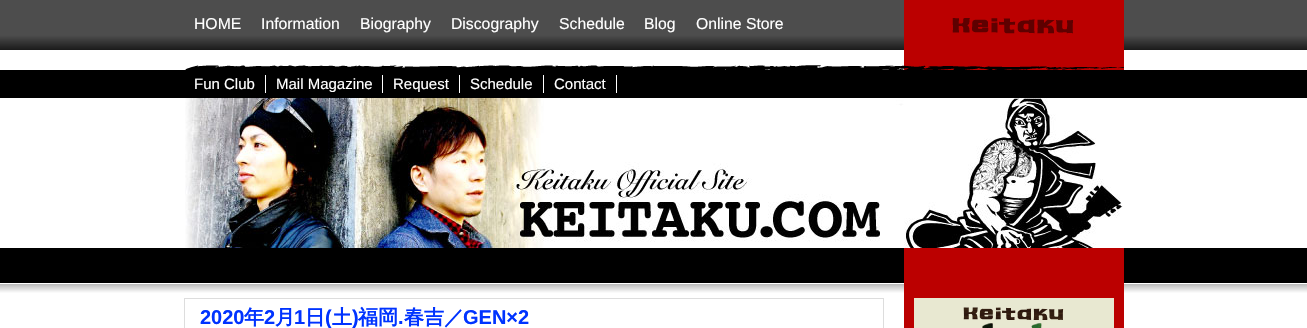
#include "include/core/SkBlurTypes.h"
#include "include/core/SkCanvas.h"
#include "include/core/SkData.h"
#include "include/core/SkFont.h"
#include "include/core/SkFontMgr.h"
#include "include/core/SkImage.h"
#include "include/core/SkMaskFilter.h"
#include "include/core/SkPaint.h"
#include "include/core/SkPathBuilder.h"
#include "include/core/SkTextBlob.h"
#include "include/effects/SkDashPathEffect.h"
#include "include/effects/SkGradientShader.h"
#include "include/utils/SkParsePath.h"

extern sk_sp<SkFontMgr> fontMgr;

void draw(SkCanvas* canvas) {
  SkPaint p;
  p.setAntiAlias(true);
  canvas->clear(SK_ColorWHITE);
  p.setColor(SK_ColorBLACK);
  canvas->drawRect(SkRect::MakeLTRB(0, 70, 1307, 98), p);
  canvas->drawImageRect(SkImages::DeferredFromEncodedData(SkData::MakeFromFileName("images/1.png")), SkRect::MakeLTRB(0, 0, 1307, 70), SkSamplingOptions());
  canvas->drawImageRect(SkImages::DeferredFromEncodedData(SkData::MakeFromFileName("images/2.png")), SkRect::MakeLTRB(185, 0, 1124, 70), SkSamplingOptions());
  canvas->drawImageRect(SkImages::DeferredFromEncodedData(SkData::MakeFromFileName("images/3.png")), SkRect::MakeLTRB(952, 18, 1073, 34), SkSamplingOptions());
  p.setColor(SK_ColorWHITE);
  canvas->drawRect(SkRect::MakeLTRB(265, 75, 266, 93), p);
  canvas->drawRect(SkRect::MakeLTRB(382, 75, 383, 93), p);
  canvas->drawRect(SkRect::MakeLTRB(459, 75, 460, 93), p);
  canvas->drawRect(SkRect::MakeLTRB(543, 75, 544, 93), p);
  canvas->drawRect(SkRect::MakeLTRB(616, 75, 617, 93), p);
  canvas->drawImageRect(SkImages::DeferredFromEncodedData(SkData::MakeFromFileName("images/4.png")), SkRect::MakeLTRB(185, 98, 1123, 248), SkSamplingOptions());
  canvas->drawImageRect(SkImages::DeferredFromEncodedData(SkData::MakeFromFileName("images/5.png")), SkRect::MakeLTRB(0, 248, 1307, 293), SkSamplingOptions());
  p.setColor(SkColorSetRGB(187, 0, 0));
  canvas->drawRect(SkRect::MakeLTRB(904, 248, 1124, 328), p);
  p.setStyle(SkPaint::kStroke_Style);
  p.setStrokeWidth(1);
  p.setColor(SkColorSetRGB(221, 221, 221));
  canvas->drawRect(SkRect::MakeLTRB(184.5f, 298.5f, 883.5f, 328.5f), p);
  canvas->drawImageRect(SkImages::DeferredFromEncodedData(SkData::MakeFromFileName("images/6.png")), SkRect::MakeLTRB(914, 298, 1114, 328), SkSamplingOptions());
  SkFont font1(fontMgr->matchFamilyStyle("Liberation Sans", SkFontStyle::Normal()), 15.75f);
  font1.setSubpixel(true);
  p.setStyle(SkPaint::kFill_Style);
  p.setColor(SK_ColorWHITE);
  canvas->drawString("HOME", 194, 29, font1, p);
  canvas->drawString("Information", 261, 29, font1, p);
  canvas->drawString("Biography", 360, 29, font1, p);
  canvas->drawString("Discography", 451, 29, font1, p);
  canvas->drawString("Schedule", 559, 29, font1, p);
  canvas->drawString("Blog", 644, 29, font1, p);
  canvas->drawString("Online Store", 696, 29, font1, p);
  SkFont font2(fontMgr->matchFamilyStyle("Liberation Sans", SkFontStyle::Normal()), 15);
  font2.setSubpixel(true);
  canvas->drawString("Fun Club", 194, 89, font2, p);
  canvas->drawString("Mail Magazine", 276, 89, font2, p);
  canvas->drawString("Request", 393, 89, font2, p);
  canvas->drawString("Schedule", 470, 89, font2, p);
  canvas->drawString("Contact", 554, 89, font2, p);
  SkFont font3(fontMgr->matchFamilyStyle("Liberation Sans", SkFontStyle::Bold()), 20);
  font3.setSubpixel(true);
  p.setColor(SkColorSetRGB(0, 51, 255));
  canvas->drawString("2020", 200, 324, font3, p);
  SkFont font4(fontMgr->matchFamilyStyle("WenQuanYi Zen Hei", SkFontStyle::Bold()), 20);
  font4.setSubpixel(true);
  canvas->drawString("年", 244, 324, font4, p);
  canvas->drawString("2", 264, 324, font3, p);
  canvas->drawString("月", 275, 324, font4, p);
  canvas->drawString("1", 294, 324, font3, p);
  canvas->drawString("日", 305, 324, font4, p);
  canvas->drawString("(", 325, 324, font3, p);
  canvas->drawString("土", 332, 324, font4, p);
  canvas->drawString(")", 352, 324, font3, p);
  canvas->drawString("福岡", 358, 324, font4, p);
  canvas->drawString(".", 398, 324, font3, p);
  canvas->drawString("春吉／", 404, 324, font4, p);
  canvas->drawString("GEN×2", 463, 324, font3, p);
}
